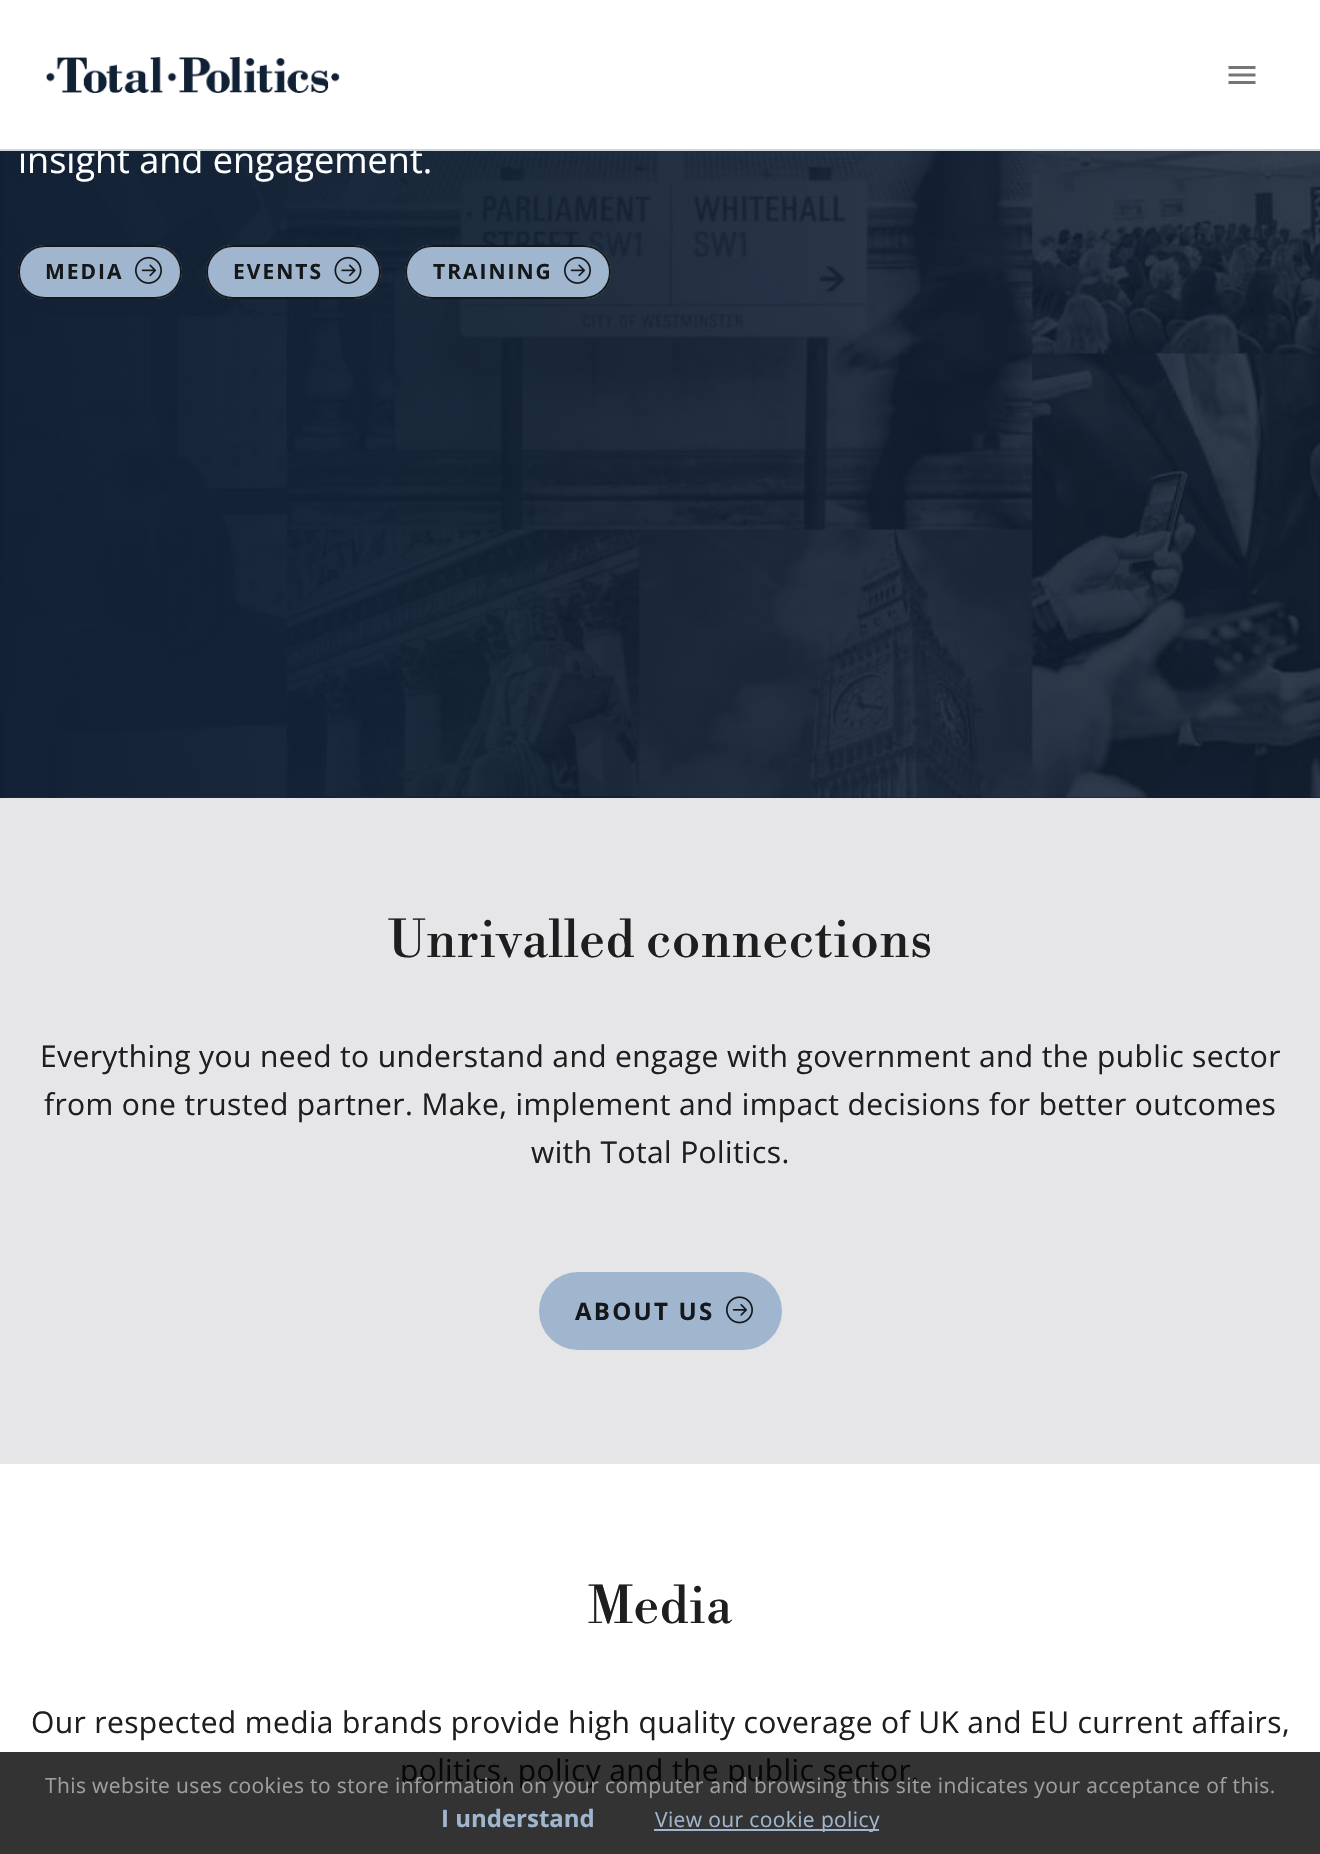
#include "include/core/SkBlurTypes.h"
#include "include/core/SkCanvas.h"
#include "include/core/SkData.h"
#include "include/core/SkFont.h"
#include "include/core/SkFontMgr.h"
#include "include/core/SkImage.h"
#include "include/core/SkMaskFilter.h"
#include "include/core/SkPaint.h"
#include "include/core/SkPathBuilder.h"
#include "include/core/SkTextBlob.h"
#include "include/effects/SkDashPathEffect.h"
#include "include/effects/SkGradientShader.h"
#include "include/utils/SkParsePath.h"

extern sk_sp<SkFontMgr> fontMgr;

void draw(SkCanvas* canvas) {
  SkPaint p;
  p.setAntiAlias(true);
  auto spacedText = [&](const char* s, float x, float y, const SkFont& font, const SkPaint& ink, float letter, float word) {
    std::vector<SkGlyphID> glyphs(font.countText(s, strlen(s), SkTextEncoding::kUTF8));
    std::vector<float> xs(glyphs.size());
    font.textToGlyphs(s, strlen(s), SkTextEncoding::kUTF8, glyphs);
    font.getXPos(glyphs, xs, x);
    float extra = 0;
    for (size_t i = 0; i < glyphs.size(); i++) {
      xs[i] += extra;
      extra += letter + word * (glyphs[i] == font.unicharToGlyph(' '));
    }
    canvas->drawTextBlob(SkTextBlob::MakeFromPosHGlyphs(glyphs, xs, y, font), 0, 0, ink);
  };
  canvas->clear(SK_ColorWHITE);
  p.setColor(SkColorSetRGB(51, 51, 51));
  canvas->drawRect(SkRect::MakeLTRB(0, 1752, 1320, 1854), p);
  canvas->drawImageRect(SkImages::DeferredFromEncodedData(SkData::MakeFromFileName("images/1.png")), SkRect::MakeLTRB(46, 57, 340, 93), SkSamplingOptions());
  canvas->drawImageRect(SkImages::DeferredFromEncodedData(SkData::MakeFromFileName("images/2.png")), SkRect::MakeLTRB(1228, 66, 1256, 84), SkSamplingOptions());
  p.setColor(SkColorSetRGB(18, 32, 53));
  canvas->drawRect(SkRect::MakeLTRB(0, 151, 1320, 798), p);
  canvas->drawImageRect(SkImages::DeferredFromEncodedData(SkData::MakeFromFileName("images/3.png")), SkRect::MakeLTRB(3, 151, 1320, 798), SkSamplingOptions());
  p.setColor(SkColorSetRGB(160, 181, 206));
  canvas->drawRoundRect(SkRect::MakeLTRB(18, 245, 182, 299), 27, 27, p);
  p.setStyle(SkPaint::kStroke_Style);
  p.setStrokeWidth(2);
  p.setColor(SkColorSetARGB(222, 0, 0, 0));
  canvas->drawRoundRect(SkRect::MakeLTRB(19, 246, 181, 298), 26, 26, p);
  canvas->drawImageRect(SkImages::DeferredFromEncodedData(SkData::MakeFromFileName("images/4.png")), SkRect::MakeLTRB(135, 256, 162, 284), SkSamplingOptions());
  p.setStyle(SkPaint::kFill_Style);
  p.setColor(SkColorSetRGB(160, 181, 206));
  canvas->drawRoundRect(SkRect::MakeLTRB(206, 245, 381, 299), 27, 27, p);
  p.setStyle(SkPaint::kStroke_Style);
  p.setColor(SkColorSetARGB(222, 0, 0, 0));
  canvas->drawRoundRect(SkRect::MakeLTRB(207, 246, 380, 298), 26, 26, p);
  canvas->drawImageRect(SkImages::DeferredFromEncodedData(SkData::MakeFromFileName("images/5.png")), SkRect::MakeLTRB(334, 256, 362, 284), SkSamplingOptions());
  p.setStyle(SkPaint::kFill_Style);
  p.setColor(SkColorSetRGB(160, 181, 206));
  canvas->drawRoundRect(SkRect::MakeLTRB(405, 245, 611, 299), 27, 27, p);
  p.setStyle(SkPaint::kStroke_Style);
  p.setColor(SkColorSetARGB(222, 0, 0, 0));
  canvas->drawRoundRect(SkRect::MakeLTRB(406, 246, 610, 298), 26, 26, p);
  canvas->drawImageRect(SkImages::DeferredFromEncodedData(SkData::MakeFromFileName("images/4.png")), SkRect::MakeLTRB(564, 256, 591, 284), SkSamplingOptions());
  p.setStyle(SkPaint::kFill_Style);
  p.setColor(SkColorSetRGB(230, 230, 232));
  canvas->drawRect(SkRect::MakeLTRB(0, 798, 1320, 1464), p);
  p.setColor(SkColorSetRGB(160, 181, 206));
  canvas->drawRoundRect(SkRect::MakeLTRB(539, 1272, 782, 1350), 39, 39, p);
  canvas->drawImageRect(SkImages::DeferredFromEncodedData(SkData::MakeFromFileName("images/6.png")), SkRect::MakeLTRB(726, 1296, 753, 1324), SkSamplingOptions());
  canvas->drawRect(SkRect::MakeLTRB(654, 1829, 879, 1831), p);
  SkFont font1(fontMgr->matchFamilyStyle("Open Sans", SkFontStyle::Normal()), 36);
  font1.setSubpixel(true);
  p.setColor(SK_ColorWHITE);
  canvas->drawString("insight and engagement.", 18, 173, font1, p);
  p.setColor(SkColorSetRGB(207, 216, 220));
  canvas->drawRect(SkRect::MakeLTRB(0, 149, 1320, 151), p);
  SkFont font2(fontMgr->matchFamilyStyle("Open Sans", SkFontStyle::Bold()), 21);
  font2.setSubpixel(true);
  p.setColor(SkColorSetRGB(21, 24, 27));
  spacedText("MEDIA", 45, 279, font2, p, 2, 0);
  spacedText("EVENTS", 233, 279, font2, p, 2, 0);
  spacedText("TRAINING", 433, 279, font2, p, 2, 0);
  SkFont font3(fontMgr->matchFamilyStyle("Libre Bodoni", SkFontStyle::Normal()), 51);
  font3.setSubpixel(true);
  p.setColor(SkColorSetRGB(30, 30, 30));
  spacedText("Unrivalled connections", 388, 957, font3, p, 0.38f, 0);
  SkFont font4(fontMgr->matchFamilyStyle("Open Sans", SkFontStyle::Normal()), 30);
  font4.setSubpixel(true);
  spacedText("Everything you need to understand and engage with government and the public sector", 40, 1067, font4, p, 0.38f, 0);
  spacedText("from one trusted partner. Make, implement and impact decisions for better outcomes", 44, 1115, font4, p, 0.38f, 0);
  spacedText("with Total Politics.", 531, 1163, font4, p, 0.38f, 0);
  SkFont font5(fontMgr->matchFamilyStyle("Open Sans", SkFontStyle::Bold()), 24);
  font5.setSubpixel(true);
  p.setColor(SkColorSetRGB(21, 24, 27));
  spacedText("ABOUT US", 575, 1320, font5, p, 2.25f, 0);
  p.setColor(SkColorSetRGB(30, 30, 30));
  spacedText("Media", 588, 1623, font3, p, 0.38f, 0);
  spacedText("Our respected media brands provide high quality coverage of UK and EU current affairs,", 31, 1733, font4, p, 0.38f, 0);
  p.setColor(SkColorSetRGB(7, 7, 7));
  spacedText("politics, policy and the public sector.", 400, 1781, font4, p, 0.38f, 0);
  SkFont font6(fontMgr->matchFamilyStyle("Open Sans", SkFontStyle::Normal()), 21);
  font6.setSubpixel(true);
  p.setColor(SkColorSetRGB(158, 158, 158));
  spacedText("This website uses cookies to store information on your computer and browsing this site indicates your acceptance of this.", 45, 1793, font6, p, 0.38f, 0);
  p.setColor(SkColorSetRGB(160, 181, 206));
  canvas->drawString("I understand", 441, 1827, font5, p);
  spacedText("View our cookie policy", 655, 1827, font6, p, 0.38f, 0);
}
